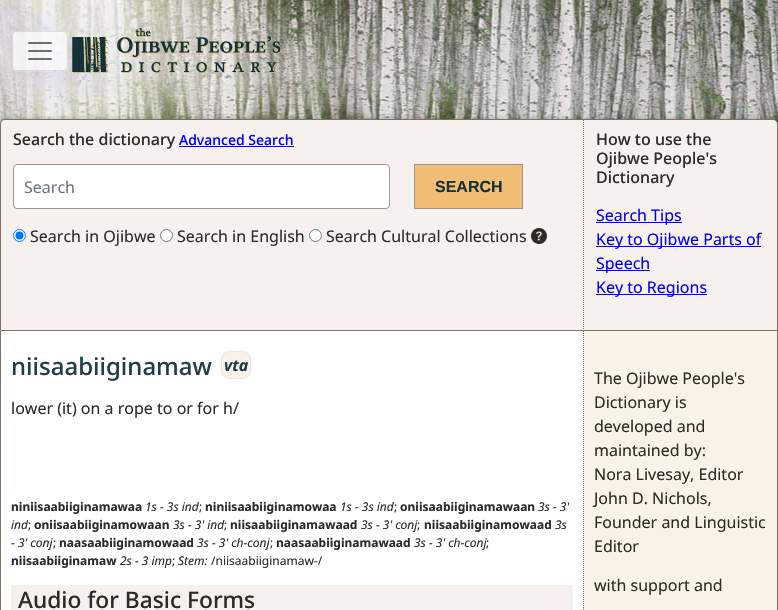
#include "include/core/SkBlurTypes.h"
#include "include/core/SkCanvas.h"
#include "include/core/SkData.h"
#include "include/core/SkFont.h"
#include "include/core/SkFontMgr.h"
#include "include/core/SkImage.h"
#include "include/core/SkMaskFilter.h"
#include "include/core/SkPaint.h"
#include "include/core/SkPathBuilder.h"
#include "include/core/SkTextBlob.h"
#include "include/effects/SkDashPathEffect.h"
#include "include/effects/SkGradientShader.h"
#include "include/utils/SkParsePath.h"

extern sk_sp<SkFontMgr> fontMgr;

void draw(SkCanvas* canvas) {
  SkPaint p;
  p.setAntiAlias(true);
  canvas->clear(SK_ColorWHITE);
  canvas->drawImageRect(SkImages::DeferredFromEncodedData(SkData::MakeFromFileName("images/1.png")), SkRect::MakeLTRB(0, 0, 778, 124), SkSamplingOptions());
  p.setColor(SkColorSetARGB(179, 255, 255, 255));
  canvas->drawRoundRect(SkRect::MakeLTRB(12, 31, 68, 71), 4, 4, p);
  p.setStyle(SkPaint::kStroke_Style);
  p.setStrokeWidth(1);
  p.setColor(SkColorSetARGB(26, 0, 0, 0));
  canvas->drawRoundRect(SkRect::MakeLTRB(12.5f, 31.5f, 67.5f, 70.5f), 3.5f, 3.5f, p);
  canvas->drawImageRect(SkImages::DeferredFromEncodedData(SkData::MakeFromFileName("images/2.png")), SkRect::MakeLTRB(28, 42, 52, 60), SkSamplingOptions());
  canvas->drawImageRect(SkImages::DeferredFromEncodedData(SkData::MakeFromFileName("images/3.png")), SkRect::MakeLTRB(72, 28, 281, 73), SkSamplingOptions());
  p.setStyle(SkPaint::kFill_Style);
  p.setColor(SkColorSetRGB(246, 241, 238));
  canvas->drawPath(SkPathBuilder().moveTo(5, 119.5f).lineTo(773, 119.5f).cubicTo(775.5f, 119.5f, 777.5f, 121.5f, 777.5f, 124).lineTo(777.5f, 330.5f).lineTo(0.5f, 330.5f).lineTo(0.5f, 124).cubicTo(0.5f, 121.5f, 2.5f, 119.5f, 5, 119.5f).close().detach(), p);
  p.setStyle(SkPaint::kStroke_Style);
  p.setColor(SkColorSetRGB(126, 113, 98));
  canvas->drawPath(SkPathBuilder().moveTo(5, 119.5f).lineTo(773, 119.5f).cubicTo(775.5f, 119.5f, 777.5f, 121.5f, 777.5f, 124).lineTo(777.5f, 330.5f).lineTo(0.5f, 330.5f).lineTo(0.5f, 124).cubicTo(0.5f, 121.5f, 2.5f, 119.5f, 5, 119.5f).close().detach(), p);
  p.setStyle(SkPaint::kFill_Style);
  p.setColor(SkColorSetRGB(0, 0, 238));
  canvas->drawRect(SkRect::MakeLTRB(179, 146, 294, 147), p);
  p.setColor(SK_ColorWHITE);
  canvas->drawRoundRect(SkRect::MakeLTRB(13.5f, 164.5f, 389.5f, 208.5f), 3.5f, 3.5f, p);
  p.setStyle(SkPaint::kStroke_Style);
  p.setColor(SkColorSetRGB(163, 149, 135));
  canvas->drawRoundRect(SkRect::MakeLTRB(13.5f, 164.5f, 389.5f, 208.5f), 3.5f, 3.5f, p);
  p.setStyle(SkPaint::kFill_Style);
  p.setColor(SkColorSetRGB(241, 189, 116));
  canvas->drawRect(SkRect::MakeLTRB(414.5f, 164.5f, 522.5f, 208.5f), p);
  p.setStyle(SkPaint::kStroke_Style);
  p.setColor(SkColorSetRGB(163, 149, 135));
  canvas->drawRect(SkRect::MakeLTRB(414.5f, 164.5f, 522.5f, 208.5f), p);
  p.setStyle(SkPaint::kFill_Style);
  p.setColor(SK_ColorWHITE);
  canvas->drawCircle(19.5f, 235.5f, 6, p);
  p.setStyle(SkPaint::kStroke_Style);
  p.setColor(SkColorSetRGB(0, 117, 255));
  canvas->drawCircle(19.5f, 235.5f, 6, p);
  p.setStyle(SkPaint::kFill_Style);
  canvas->drawCircle(19.5f, 235.5f, 4, p);
  p.setColor(SK_ColorWHITE);
  canvas->drawCircle(166.5f, 235.5f, 6, p);
  p.setStyle(SkPaint::kStroke_Style);
  p.setColor(SkColorSetRGB(118, 118, 118));
  canvas->drawCircle(166.5f, 235.5f, 6, p);
  p.setStyle(SkPaint::kFill_Style);
  p.setColor(SK_ColorWHITE);
  canvas->drawCircle(315.5f, 235.5f, 6, p);
  p.setStyle(SkPaint::kStroke_Style);
  p.setColor(SkColorSetRGB(118, 118, 118));
  canvas->drawCircle(315.5f, 235.5f, 6, p);
  canvas->drawImageRect(SkImages::DeferredFromEncodedData(SkData::MakeFromFileName("images/4.png")), SkRect::MakeLTRB(531, 228, 547, 244), SkSamplingOptions());
  p.setColor(SkColorSetRGB(126, 113, 98));
  p.setPathEffect(SkDashPathEffect::Make({{1, 1}}, 0));
  canvas->drawPath(SkPathBuilder().moveTo(583.5f, 120).lineTo(583.5f, 330).detach(), p);
  p.setPathEffect(nullptr);
  p.setStyle(SkPaint::kFill_Style);
  p.setColor(SkColorSetRGB(0, 0, 238));
  canvas->drawRect(SkRect::MakeLTRB(596, 222, 682, 223), p);
  canvas->drawRect(SkRect::MakeLTRB(596, 246, 761, 247), p);
  canvas->drawRect(SkRect::MakeLTRB(596, 270, 650, 271), p);
  canvas->drawRect(SkRect::MakeLTRB(596, 294, 707, 295), p);
  p.setColor(SkColorSetRGB(248, 242, 232));
  canvas->drawRect(SkRect::MakeLTRB(583, 331, 777, 610), p);
  p.setColor(SkColorSetRGB(126, 113, 98));
  canvas->drawPath(SkPathBuilder(SkPathFillType::kEvenOdd).moveTo(0, 331).lineTo(778, 331).lineTo(778, 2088).cubicTo(778, 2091, 776, 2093, 773, 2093).lineTo(5, 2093).cubicTo(2, 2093, 0, 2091, 0, 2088).close().moveTo(1, 331).lineTo(777, 331).lineTo(777, 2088).cubicTo(777, 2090, 775, 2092, 773, 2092).lineTo(5, 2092).cubicTo(3, 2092, 1, 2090, 1, 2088).close().detach(), p);
  p.setColor(SkColorSetRGB(248, 242, 232));
  canvas->drawRoundRect(SkRect::MakeLTRB(221.5f, 351.5f, 250.5f, 378.5f), 7.5f, 7.5f, p);
  p.setStyle(SkPaint::kStroke_Style);
  p.setColor(SkColorSetRGB(237, 231, 222));
  canvas->drawRoundRect(SkRect::MakeLTRB(221.5f, 351.5f, 250.5f, 378.5f), 7.5f, 7.5f, p);
  p.setStyle(SkPaint::kFill_Style);
  p.setColor(SkColorSetRGB(246, 241, 238));
  canvas->drawRect(SkRect::MakeLTRB(11, 585, 573, 610), p);
  p.setStyle(SkPaint::kStroke_Style);
  p.setColor(SkColorSetRGB(126, 113, 98));
  p.setPathEffect(SkDashPathEffect::Make({{1, 1}}, 0));
  canvas->drawPath(SkPathBuilder().moveTo(583.5f, 331).lineTo(583.5f, 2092).detach(), p);
  p.setPathEffect(nullptr);
  SkFont font1(fontMgr->matchFamilyStyle("Noto Sans", SkFontStyle(500, SkFontStyle::kNormal_Width, SkFontStyle::kUpright_Slant)), 16);
  font1.setSubpixel(true);
  p.setStyle(SkPaint::kFill_Style);
  p.setColor(SkColorSetRGB(46, 42, 38));
  canvas->drawString("Search the dictionary", 13, 145, font1, p);
  SkFont font2(fontMgr->matchFamilyStyle("Noto Sans", SkFontStyle(500, SkFontStyle::kNormal_Width, SkFontStyle::kUpright_Slant)), 14);
  font2.setSubpixel(true);
  p.setColor(SkColorSetRGB(0, 0, 238));
  canvas->drawString("Advanced Search", 179, 145, font2, p);
  SkFont font3(fontMgr->matchFamilyStyle("Noto Sans", SkFontStyle::Normal()), 16);
  font3.setSubpixel(true);
  p.setColor(SkColorSetRGB(108, 117, 125));
  canvas->drawString("Search", 24, 193, font3, p);
  SkFont font4(fontMgr->matchFamilyStyle("Liberation Sans", SkFontStyle::Bold()), 16);
  font4.setSubpixel(true);
  p.setColor(SkColorSetRGB(22, 49, 56));
  canvas->drawString("SEARCH", 435, 192, font4, p);
  p.setColor(SkColorSetRGB(46, 42, 38));
  canvas->drawString("Search in Ojibwe", 30, 242, font3, p);
  canvas->drawString("Search in English", 177, 242, font3, p);
  canvas->drawString("Search Cultural Collections", 326, 242, font3, p);
  canvas->drawString("How to use the", 596, 145, font1, p);
  canvas->drawString("Ojibwe People's", 596, 164, font1, p);
  canvas->drawString("Dictionary", 596, 183, font1, p);
  p.setColor(SkColorSetRGB(0, 0, 238));
  canvas->drawString("Search Tips", 596, 221, font3, p);
  canvas->drawString("Key to Ojibwe Parts of", 596, 245, font3, p);
  canvas->drawString("Speech", 596, 269, font3, p);
  canvas->drawString("Key to Regions", 596, 293, font3, p);
  SkFont font5(fontMgr->matchFamilyStyle("Noto Sans", SkFontStyle(500, SkFontStyle::kNormal_Width, SkFontStyle::kUpright_Slant)), 24);
  font5.setSubpixel(true);
  p.setColor(SkColorSetRGB(31, 62, 71));
  canvas->drawString("niisaabiiginamaw", 11, 375, font5, p);
  SkFont font6(fontMgr->matchFamilyStyle("Noto Sans", SkFontStyle::BoldItalic()), 16);
  font6.setSubpixel(true);
  canvas->drawString("vta", 224, 371, font6, p);
  p.setColor(SkColorSetRGB(46, 42, 38));
  canvas->drawString("lower (it) on a rope to or for h/", 11, 414, font3, p);
  SkFont font7(fontMgr->matchFamilyStyle("Noto Sans", SkFontStyle::Bold()), 12);
  font7.setSubpixel(true);
  canvas->drawString("niniisaabiiginamawaa", 11, 511, font7, p);
  SkFont font8(fontMgr->matchFamilyStyle("Noto Sans", SkFontStyle::Italic()), 12);
  font8.setSubpixel(true);
  canvas->drawString("1s - 3s ind", 145, 511, font8, p);
  SkFont font9(fontMgr->matchFamilyStyle("Noto Sans", SkFontStyle::Normal()), 12);
  font9.setSubpixel(true);
  canvas->drawString(";", 199, 511, font9, p);
  canvas->drawString("niniisaabiiginamowaa", 205, 511, font7, p);
  canvas->drawString("1s - 3s ind", 340, 511, font8, p);
  canvas->drawString(";", 394, 511, font9, p);
  canvas->drawString("oniisaabiiginamawaan", 400, 511, font7, p);
  canvas->drawString("3s - 3'", 538, 511, font8, p);
  canvas->drawString("ind", 11, 529, font8, p);
  canvas->drawString(";", 28, 529, font9, p);
  canvas->drawString("oniisaabiiginamowaan", 34, 529, font7, p);
  canvas->drawString("3s - 3' ind", 173, 529, font8, p);
  canvas->drawString(";", 224, 529, font9, p);
  canvas->drawString("niisaabiiginamawaad", 230, 529, font7, p);
  canvas->drawString("3s - 3' conj", 361, 529, font8, p);
  canvas->drawString(";", 417, 529, font9, p);
  canvas->drawString("niisaabiiginamowaad", 424, 529, font7, p);
  canvas->drawString("3s", 555, 529, font8, p);
  canvas->drawString("- 3' conj", 11, 547, font8, p);
  canvas->drawString(";", 53, 547, font9, p);
  canvas->drawString("naasaabiiginamowaad", 59, 547, font7, p);
  canvas->drawString("3s - 3' ch-conj", 197, 547, font8, p);
  canvas->drawString(";", 270, 547, font9, p);
  canvas->drawString("naasaabiiginamawaad", 276, 547, font7, p);
  canvas->drawString("3s - 3' ch-conj", 414, 547, font8, p);
  canvas->drawString(";", 486, 547, font9, p);
  canvas->drawString("niisaabiiginamaw", 11, 565, font7, p);
  canvas->drawString("2s - 3 imp", 120, 565, font8, p);
  canvas->drawString(";", 172, 565, font9, p);
  canvas->drawString("Stem:", 178, 565, font8, p);
  canvas->drawString("/niisaabiiginamaw-/", 211, 565, font9, p);
  SkFont font10(fontMgr->matchFamilyStyle("Noto Sans", SkFontStyle(500, SkFontStyle::kNormal_Width, SkFontStyle::kUpright_Slant)), 22.75f);
  font10.setSubpixel(true);
  canvas->drawString("Audio for Basic Forms", 18, 608, font10, p);
  canvas->drawString("The Ojibwe People's", 594, 384, font3, p);
  canvas->drawString("Dictionary is", 594, 408, font3, p);
  canvas->drawString("developed and", 594, 432, font3, p);
  canvas->drawString("maintained by:", 594, 456, font3, p);
  canvas->drawString("Nora Livesay, Editor", 594, 480, font3, p);
  canvas->drawString("John D. Nichols,", 594, 504, font3, p);
  canvas->drawString("Founder and Linguistic", 594, 528, font3, p);
  canvas->drawString("Editor", 594, 552, font3, p);
  canvas->drawString("with support and", 594, 591, font3, p);
}
